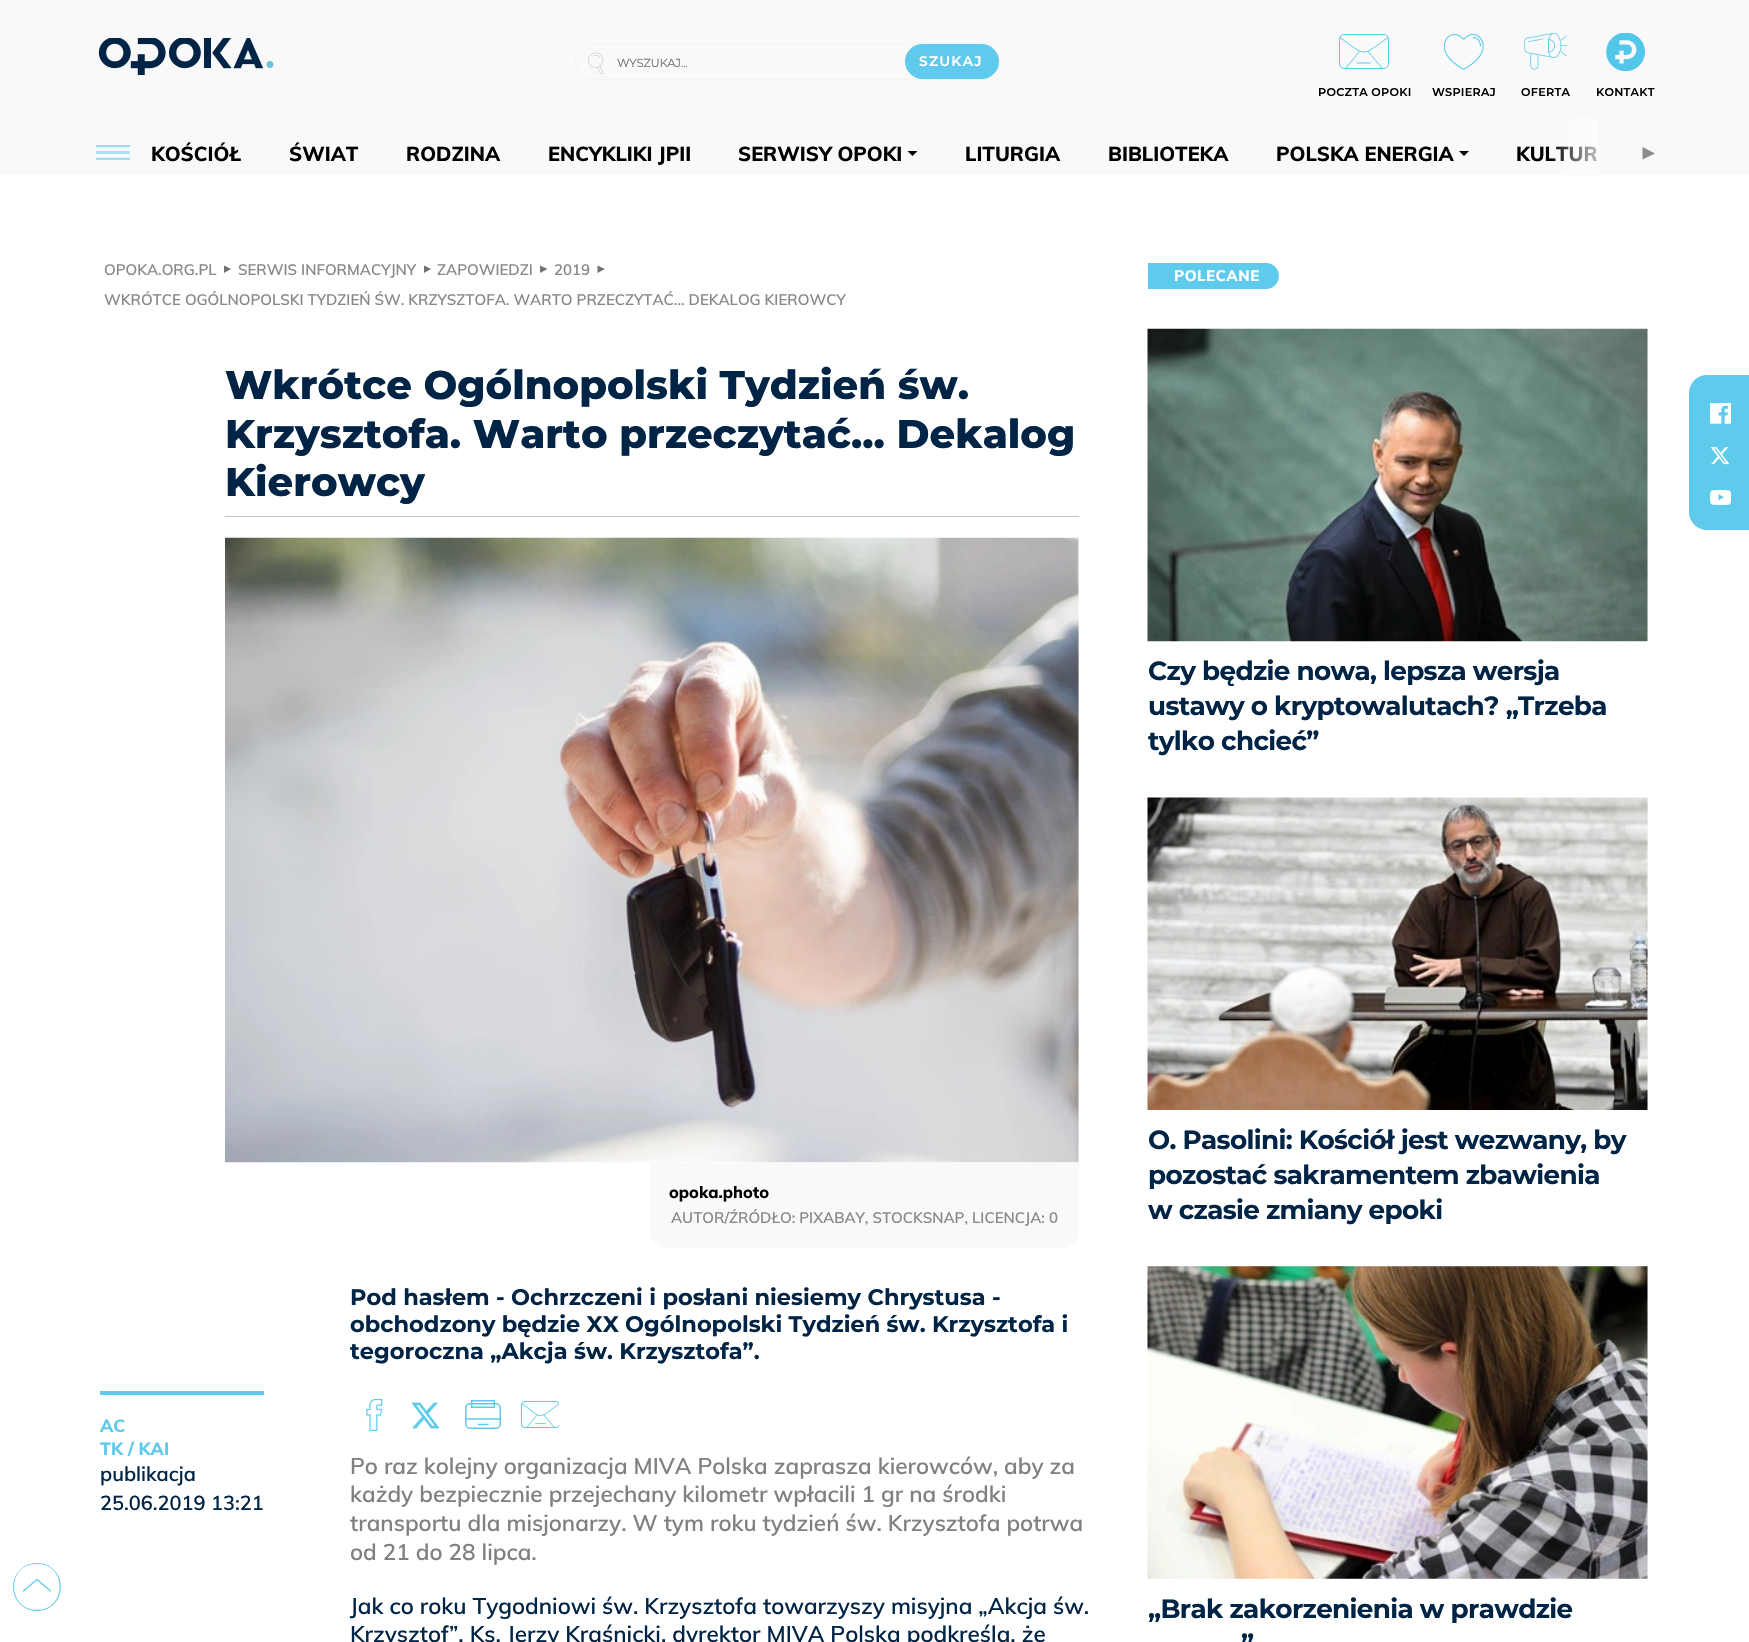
#include "include/core/SkBlurTypes.h"
#include "include/core/SkCanvas.h"
#include "include/core/SkData.h"
#include "include/core/SkFont.h"
#include "include/core/SkFontMgr.h"
#include "include/core/SkImage.h"
#include "include/core/SkMaskFilter.h"
#include "include/core/SkPaint.h"
#include "include/core/SkPathBuilder.h"
#include "include/core/SkTextBlob.h"
#include "include/effects/SkDashPathEffect.h"
#include "include/effects/SkGradientShader.h"
#include "include/utils/SkParsePath.h"

extern sk_sp<SkFontMgr> fontMgr;

void draw(SkCanvas* canvas) {
  SkPaint p;
  p.setAntiAlias(true);
  auto spacedText = [&](const char* s, float x, float y, const SkFont& font, const SkPaint& ink, float letter, float word) {
    std::vector<SkGlyphID> glyphs(font.countText(s, strlen(s), SkTextEncoding::kUTF8));
    std::vector<float> xs(glyphs.size());
    font.textToGlyphs(s, strlen(s), SkTextEncoding::kUTF8, glyphs);
    font.getXPos(glyphs, xs, x);
    float extra = 0;
    for (size_t i = 0; i < glyphs.size(); i++) {
      xs[i] += extra;
      extra += letter + word * (glyphs[i] == font.unicharToGlyph(' '));
    }
    canvas->drawTextBlob(SkTextBlob::MakeFromPosHGlyphs(glyphs, xs, y, font), 0, 0, ink);
  };
  canvas->clear(SK_ColorWHITE);
  p.setColor(SkColorSetRGB(249, 249, 249));
  canvas->drawRect(SkRect::MakeLTRB(0, 0, 1749, 175), p);
  canvas->drawImageRect(SkImages::DeferredFromEncodedData(SkData::MakeFromFileName("images/1.png")), SkRect::MakeLTRB(98, 38, 274, 75), SkSamplingOptions());
  p.setStyle(SkPaint::kStroke_Style);
  p.setStrokeWidth(1);
  p.setColor(SkColorSetRGB(243, 243, 243));
  canvas->drawRoundRect(SkRect::MakeLTRB(575.5f, 43.5f, 999.5f, 79.5f), 18, 18, p);
  canvas->drawImageRect(SkImages::DeferredFromEncodedData(SkData::MakeFromFileName("images/2.png")), SkRect::MakeLTRB(588, 52, 604, 75), SkSamplingOptions());
  p.setStyle(SkPaint::kFill_Style);
  p.setColor(SkColorSetRGB(94, 202, 236));
  canvas->drawRoundRect(SkRect::MakeLTRB(905, 44, 999, 79), 17.5f, 17.5f, p);
  p.setStyle(SkPaint::kStroke_Style);
  canvas->drawRoundRect(SkRect::MakeLTRB(1339.5f, 34.5f, 1388.5f, 68.5f), 4.5f, 4.5f, p);
  p.setStrokeCap(SkPaint::kRound_Cap);
  p.setStrokeJoin(SkPaint::kRound_Join);
  canvas->drawPath(SkPathBuilder().moveTo(1340, 37.5f).cubicTo(1367, 57, 1360.5f, 57, 1388, 37.5f).moveTo(1346, 68).lineTo(1359.5f, 51.5f).moveTo(1382, 68).lineTo(1368, 51.5f).moveTo(1370.5f, 63).lineTo(1357, 63).detach(), p);
  canvas->drawImageRect(SkImages::DeferredFromEncodedData(SkData::MakeFromFileName("images/3.png")), SkRect::MakeLTRB(1444, 34, 1484, 70), SkSamplingOptions());
  canvas->drawImageRect(SkImages::DeferredFromEncodedData(SkData::MakeFromFileName("images/4.png")), SkRect::MakeLTRB(1524, 33, 1568, 70), SkSamplingOptions());
  canvas->drawImageRect(SkImages::DeferredFromEncodedData(SkData::MakeFromFileName("images/5.png")), SkRect::MakeLTRB(1606, 33, 1645, 71), SkSamplingOptions());
  canvas->save();
  canvas->clipRect(SkRect::MakeLTRB(96, 145, 130, 160));
  p.setStrokeWidth(2.5f);
  p.setStrokeCap(SkPaint::kButt_Cap);
  p.setStrokeJoin(SkPaint::kMiter_Join);
  p.setColor(SkColorSetRGB(154, 222, 243));
  canvas->drawPath(SkPathBuilder().moveTo(96, 146).lineTo(130, 146).detach(), p);
  canvas->restore();
  p.setStyle(SkPaint::kFill_Style);
  p.setColor(SkColorSetRGB(170, 227, 244));
  canvas->drawRect(SkRect::MakeLTRB(96, 151, 130, 154), p);
  canvas->save();
  canvas->clipRect(SkRect::MakeLTRB(96, 145, 130, 160));
  p.setStyle(SkPaint::kStroke_Style);
  p.setColor(SkColorSetRGB(154, 222, 243));
  canvas->drawPath(SkPathBuilder().moveTo(96, 159).lineTo(130, 159).detach(), p);
  canvas->restore();
  p.setStyle(SkPaint::kFill_Style);
  p.setColor(SK_ColorBLACK);
  canvas->drawPath(SkPathBuilder().moveTo(907.5f, 151).lineTo(917.5f, 151).lineTo(912.5f, 156).close().detach(), p);
  canvas->drawPath(SkPathBuilder().moveTo(1459, 151).lineTo(1469, 151).lineTo(1464, 156).close().detach(), p);
  p.setColor(SkColorSetRGB(140, 140, 140));
  canvas->drawPath(SkPathBuilder().moveTo(1655, 153.5f).lineTo(1642.5f, 147).lineTo(1642.5f, 159.5f).close().detach(), p);
  p.setColor(SkColorSetRGB(114, 114, 114));
  canvas->drawPath(SkPathBuilder().moveTo(231, 269).lineTo(224, 265.5f).lineTo(224, 273).close().detach(), p);
  canvas->drawPath(SkPathBuilder().moveTo(431, 269).lineTo(424, 265.5f).lineTo(424, 273).close().detach(), p);
  canvas->drawPath(SkPathBuilder().moveTo(547.5f, 269).lineTo(540, 265.5f).lineTo(540, 273).close().detach(), p);
  canvas->drawPath(SkPathBuilder().moveTo(605, 269).lineTo(597.5f, 265.5f).lineTo(597.5f, 273).close().detach(), p);
  p.setColor(SkColorSetRGB(196, 196, 196));
  canvas->drawRect(SkRect::MakeLTRB(225, 516, 1079, 517), p);
  canvas->drawImageRect(SkImages::DeferredFromEncodedData(SkData::MakeFromFileName("images/6.png")), SkRect::MakeLTRB(225, 537, 1079, 1163), SkSamplingOptions());
  p.setColor(SkColorSetRGB(249, 249, 249));
  canvas->drawPath(SkPathBuilder().moveTo(650, 1163).lineTo(1079, 1163).lineTo(1079, 1230).cubicTo(1079, 1240, 1071, 1248, 1061, 1248).lineTo(668, 1248).cubicTo(658, 1248, 650, 1240, 650, 1230).close().detach(), p);
  canvas->drawImageRect(SkImages::DeferredFromEncodedData(SkData::MakeFromFileName("images/7.png")), SkRect::MakeLTRB(366, 1399, 383, 1431), SkSamplingOptions());
  canvas->drawImageRect(SkImages::DeferredFromEncodedData(SkData::MakeFromFileName("images/8.png")), SkRect::MakeLTRB(411, 1402, 439, 1429), SkSamplingOptions());
  p.setStyle(SkPaint::kStroke_Style);
  p.setStrokeWidth(1.5f);
  p.setColor(SkColorSetRGB(94, 202, 236));
  canvas->drawRoundRect(SkRect::MakeLTRB(465.75f, 1403.75f, 500.25f, 1428.25f), 4.25f, 4.25f, p);
  p.setStrokeWidth(1.3f);
  p.setStrokeCap(SkPaint::kRound_Cap);
  p.setStrokeJoin(SkPaint::kRound_Join);
  canvas->drawPath(SkPathBuilder().moveTo(488, 1424.5f).lineTo(478.5f, 1424.5f).detach(), p);
  p.setStrokeCap(SkPaint::kButt_Cap);
  p.setStrokeJoin(SkPaint::kMiter_Join);
  canvas->drawPath(SkPathBuilder().moveTo(466, 1419).lineTo(501, 1419).detach(), p);
  p.setStrokeWidth(1.5f);
  canvas->drawRect(SkRect::MakeLTRB(471.75f, 1400.75f, 494.25f, 1407.25f), p);
  canvas->drawImageRect(SkImages::DeferredFromEncodedData(SkData::MakeFromFileName("images/9.png")), SkRect::MakeLTRB(521, 1401, 559, 1428), SkSamplingOptions());
  p.setStyle(SkPaint::kFill_Style);
  canvas->drawRect(SkRect::MakeLTRB(100, 1391, 264, 1395), p);
  canvas->drawPath(SkPathBuilder().moveTo(1148, 263).lineTo(1266, 263).cubicTo(1273, 263, 1279, 269, 1279, 276).cubicTo(1279, 283, 1273, 289, 1266, 289).lineTo(1148, 289).close().detach(), p);
  p.setColor(SkColorSetRGB(249, 249, 249));
  canvas->drawRect(SkRect::MakeLTRB(1647, 329, 1648, 641), p);
  canvas->drawImageRect(SkImages::DeferredFromEncodedData(SkData::MakeFromFileName("images/10.png")), SkRect::MakeLTRB(1147, 328, 1648, 642), SkSamplingOptions());
  canvas->drawRect(SkRect::MakeLTRB(1647, 798, 1648, 1110), p);
  canvas->drawImageRect(SkImages::DeferredFromEncodedData(SkData::MakeFromFileName("images/11.png")), SkRect::MakeLTRB(1147, 797, 1648, 1110), SkSamplingOptions());
  canvas->drawRect(SkRect::MakeLTRB(1148, 1266, 1648, 1579), p);
  canvas->drawImageRect(SkImages::DeferredFromEncodedData(SkData::MakeFromFileName("images/12.png")), SkRect::MakeLTRB(1147, 1266, 1648, 1579), SkSamplingOptions());
  p.setColor(SkColorSetRGB(94, 202, 236));
  canvas->drawPath(SkPathBuilder().moveTo(1707, 375).lineTo(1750, 375).lineTo(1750, 530).lineTo(1707, 530).cubicTo(1697, 530, 1689, 522, 1689, 512).lineTo(1689, 393).cubicTo(1689, 383, 1697, 375, 1707, 375).close().detach(), p);
  canvas->drawImageRect(SkImages::DeferredFromEncodedData(SkData::MakeFromFileName("images/13.png")), SkRect::MakeLTRB(1710, 403, 1731, 424), SkSamplingOptions());
  canvas->drawImageRect(SkImages::DeferredFromEncodedData(SkData::MakeFromFileName("images/14.png")), SkRect::MakeLTRB(1710, 447, 1730, 465), SkSamplingOptions());
  canvas->drawImageRect(SkImages::DeferredFromEncodedData(SkData::MakeFromFileName("images/15.png")), SkRect::MakeLTRB(1710, 490, 1731, 505), SkSamplingOptions());
  p.setStyle(SkPaint::kStroke_Style);
  p.setStrokeWidth(1.3f);
  p.setStrokeCap(SkPaint::kRound_Cap);
  p.setStrokeJoin(SkPaint::kRound_Join);
  canvas->drawPath(SkPathBuilder().moveTo(50.5f, 1591).lineTo(37, 1579.5f).lineTo(23.5f, 1591).detach(), p);
  canvas->save();
  canvas->clipPath(SkPathBuilder().moveTo(37, 1563).cubicTo(50.5f, 1563, 61, 1573.5f, 61, 1587).cubicTo(61, 1600.5f, 50.5f, 1611, 37, 1611).cubicTo(23.5f, 1611, 13, 1600.5f, 13, 1587).cubicTo(13, 1573.5f, 23.5f, 1563, 37, 1563).close().detach(), true);
  canvas->drawPath(SkPathBuilder().moveTo(37, 1610.5f).cubicTo(5.5f, 1610.5f, 5.5f, 1563, 37, 1563).cubicTo(68, 1563, 68, 1610.5f, 37, 1610.5f).close().detach(), p);
  canvas->restore();
  SkFont font1(fontMgr->matchFamilyStyle("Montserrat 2", SkFontStyle::Bold()), 11.25f);
  font1.setSubpixel(true);
  p.setStyle(SkPaint::kFill_Style);
  p.setColor(SkColorSetRGB(117, 117, 117));
  canvas->drawString("WYSZUKAJ...", 617, 67, font1, p);
  SkFont font2(fontMgr->matchFamilyStyle("Montserrat", SkFontStyle(600, SkFontStyle::kNormal_Width, SkFontStyle::kUpright_Slant)), 13.75f);
  font2.setSubpixel(true);
  p.setColor(SK_ColorWHITE);
  spacedText("SZUKAJ", 919, 66, font2, p, 1.25f, 0);
  SkFont font3(fontMgr->matchFamilyStyle("Montserrat", SkFontStyle(600, SkFontStyle::kNormal_Width, SkFontStyle::kUpright_Slant)), 11.25f);
  font3.setSubpixel(true);
  p.setColor(SK_ColorBLACK);
  spacedText("POCZTA OPOKI", 1318, 96, font3, p, 0.25f, 0);
  spacedText("WSPIERAJ", 1432, 96, font3, p, 0.25f, 0);
  spacedText("OFERTA", 1521, 96, font3, p, 0.25f, 0);
  spacedText("KONTAKT", 1596, 96, font3, p, 0.25f, 0);
  SkFont font4(fontMgr->matchFamilyStyle("Mulish", SkFontStyle(800, SkFontStyle::kNormal_Width, SkFontStyle::kUpright_Slant)), 20);
  font4.setSubpixel(true);
  canvas->drawString("KOŚCIÓŁ", 151, 161, font4, p);
  canvas->drawString("ŚWIAT", 289, 161, font4, p);
  canvas->drawString("RODZINA", 406, 161, font4, p);
  canvas->drawString("ENCYKLIKI JPII", 548, 161, font4, p);
  canvas->drawString("SERWISY OPOKI", 738, 161, font4, p);
  canvas->drawString("LITURGIA", 965, 161, font4, p);
  canvas->drawString("BIBLIOTEKA", 1108, 161, font4, p);
  canvas->drawString("POLSKA ENERGIA", 1276, 161, font4, p);
  canvas->drawString("KULTUR", 1516, 161, font4, p);
  {
    const SkColor colors[] = {SkColorSetARGB(0, 255, 255, 255), SkColorSetARGB(117, 255, 255, 255), SkColorSetRGB(249, 249, 249)};
    const float stops[] = {0, 0.23f, 0.5f};
    const SkPoint ends[] = {{1550, 146}, {1675, 146}};
    p.setShader(SkGradientShader::MakeLinear(ends, colors, stops, 3, SkTileMode::kClamp));
    p.setAlpha(255);
  }
  canvas->drawRect(SkRect::MakeLTRB(1551, 118, 1598, 175), p);
  SkFont font5(fontMgr->matchFamilyStyle("Mulish", SkFontStyle(600, SkFontStyle::kNormal_Width, SkFontStyle::kUpright_Slant)), 15);
  font5.setSubpixel(true);
  p.setShader(nullptr);
  p.setColor(SkColorSetRGB(136, 136, 136));
  canvas->drawString("OPOKA.ORG.PL", 104, 275, font5, p);
  canvas->drawString("SERWIS INFORMACYJNY", 238, 275, font5, p);
  canvas->drawString("ZAPOWIEDZI", 437, 275, font5, p);
  canvas->drawString("2019", 554, 275, font5, p);
  canvas->drawString("WKRÓTCE OGÓLNOPOLSKI TYDZIEŃ ŚW. KRZYSZTOFA. WARTO PRZECZYTAĆ... DEKALOG KIEROWCY", 104, 305, font5, p);
  SkFont font6(fontMgr->matchFamilyStyle("Montserrat", SkFontStyle(800, SkFontStyle::kNormal_Width, SkFontStyle::kUpright_Slant)), 40);
  font6.setSubpixel(true);
  p.setColor(SkColorSetRGB(0, 36, 69));
  canvas->drawString("Wkrótce Ogólnopolski Tydzień św.", 225, 399, font6, p);
  canvas->drawString("Krzysztofa. Warto przeczytać... Dekalog", 225, 448, font6, p);
  canvas->drawString("Kierowcy", 225, 496, font6, p);
  SkFont font7(fontMgr->matchFamilyStyle("Mulish", SkFontStyle(800, SkFontStyle::kNormal_Width, SkFontStyle::kUpright_Slant)), 16.25f);
  font7.setSubpixel(true);
  p.setColor(SK_ColorBLACK);
  canvas->drawString("opoka.photo", 669, 1198, font7, p);
  p.setColor(SkColorSetRGB(136, 136, 136));
  canvas->drawString("AUTOR/ŹRÓDŁO: PIXABAY, STOCKSNAP, LICENCJA: 0", 671, 1223, font5, p);
  SkFont font8(fontMgr->matchFamilyStyle("Montserrat", SkFontStyle::Bold()), 22.5f);
  font8.setSubpixel(true);
  p.setColor(SkColorSetRGB(0, 36, 69));
  canvas->drawString("Pod hasłem - Ochrzczeni i posłani niesiemy Chrystusa -", 350, 1305, font8, p);
  canvas->drawString("obchodzony będzie XX Ogólnopolski Tydzień św. Krzysztofa i", 350, 1332, font8, p);
  canvas->drawString("tegoroczna „Akcja św. Krzysztofa”.", 350, 1359, font8, p);
  SkFont font9(fontMgr->matchFamilyStyle("Mulish", SkFontStyle(800, SkFontStyle::kNormal_Width, SkFontStyle::kUpright_Slant)), 17.5f);
  font9.setSubpixel(true);
  p.setColor(SkColorSetRGB(94, 202, 236));
  canvas->drawString("AC", 100, 1432, font9, p);
  canvas->drawString("TK / KAI", 100, 1455, font9, p);
  SkFont font10(fontMgr->matchFamilyStyle("Mulish", SkFontStyle(600, SkFontStyle::kNormal_Width, SkFontStyle::kUpright_Slant)), 20);
  font10.setSubpixel(true);
  p.setColor(SkColorSetRGB(0, 36, 69));
  canvas->drawString("publikacja", 100, 1481, font10, p);
  canvas->drawString("25.06.2019 13:21", 100, 1510, font10, p);
  SkFont font11(fontMgr->matchFamilyStyle("Mulish", SkFontStyle(600, SkFontStyle::kNormal_Width, SkFontStyle::kUpright_Slant)), 22.5f);
  font11.setSubpixel(true);
  p.setColor(SkColorSetRGB(128, 128, 128));
  canvas->drawString("Po raz kolejny organizacja MIVA Polska zaprasza kierowców, aby za", 350, 1474, font11, p);
  canvas->drawString("każdy bezpiecznie przejechany kilometr wpłacili 1 gr na środki", 350, 1502, font11, p);
  canvas->drawString("transportu dla misjonarzy. W tym roku tydzień św. Krzysztofa potrwa", 350, 1531, font11, p);
  canvas->drawString("od 21 do 28 lipca.", 350, 1560, font11, p);
  p.setColor(SkColorSetRGB(0, 36, 69));
  canvas->drawString("Jak co roku Tygodniowi św. Krzysztofa towarzyszy misyjna „Akcja św.", 350, 1614, font11, p);
  canvas->drawString("Krzysztof”. Ks. Jerzy Kraśnicki, dyrektor MIVA Polska podkreśla, że", 350, 1642, font11, p);
  SkFont font12(fontMgr->matchFamilyStyle("Mulish", SkFontStyle(800, SkFontStyle::kNormal_Width, SkFontStyle::kUpright_Slant)), 15);
  font12.setSubpixel(true);
  p.setColor(SK_ColorWHITE);
  spacedText("POLECANE", 1174, 281, font12, p, 0.5f, 0);
  SkFont font13(fontMgr->matchFamilyStyle("Montserrat", SkFontStyle::Bold()), 26.25f);
  font13.setSubpixel(true);
  p.setColor(SkColorSetRGB(0, 36, 69));
  spacedText("Czy będzie nowa, lepsza wersja", 1148, 680, font13, p, -0.65f, 0);
  spacedText("ustawy o kryptowalutach? „Trzeba", 1148, 715, font13, p, -0.65f, 0);
  spacedText("tylko chcieć”", 1148, 750, font13, p, -0.65f, 0);
  spacedText("O. Pasolini: Kościół jest wezwany, by", 1148, 1149, font13, p, -0.65f, 0);
  spacedText("pozostać sakramentem zbawienia", 1148, 1184, font13, p, -0.65f, 0);
  spacedText("w czasie zmiany epoki", 1148, 1219, font13, p, -0.65f, 0);
  spacedText("„Brak zakorzenienia w prawdzie", 1148, 1618, font13, p, -0.65f, 0);
  spacedText("”", 1241, 1653, font13, p, -0.65f, 0);
}
